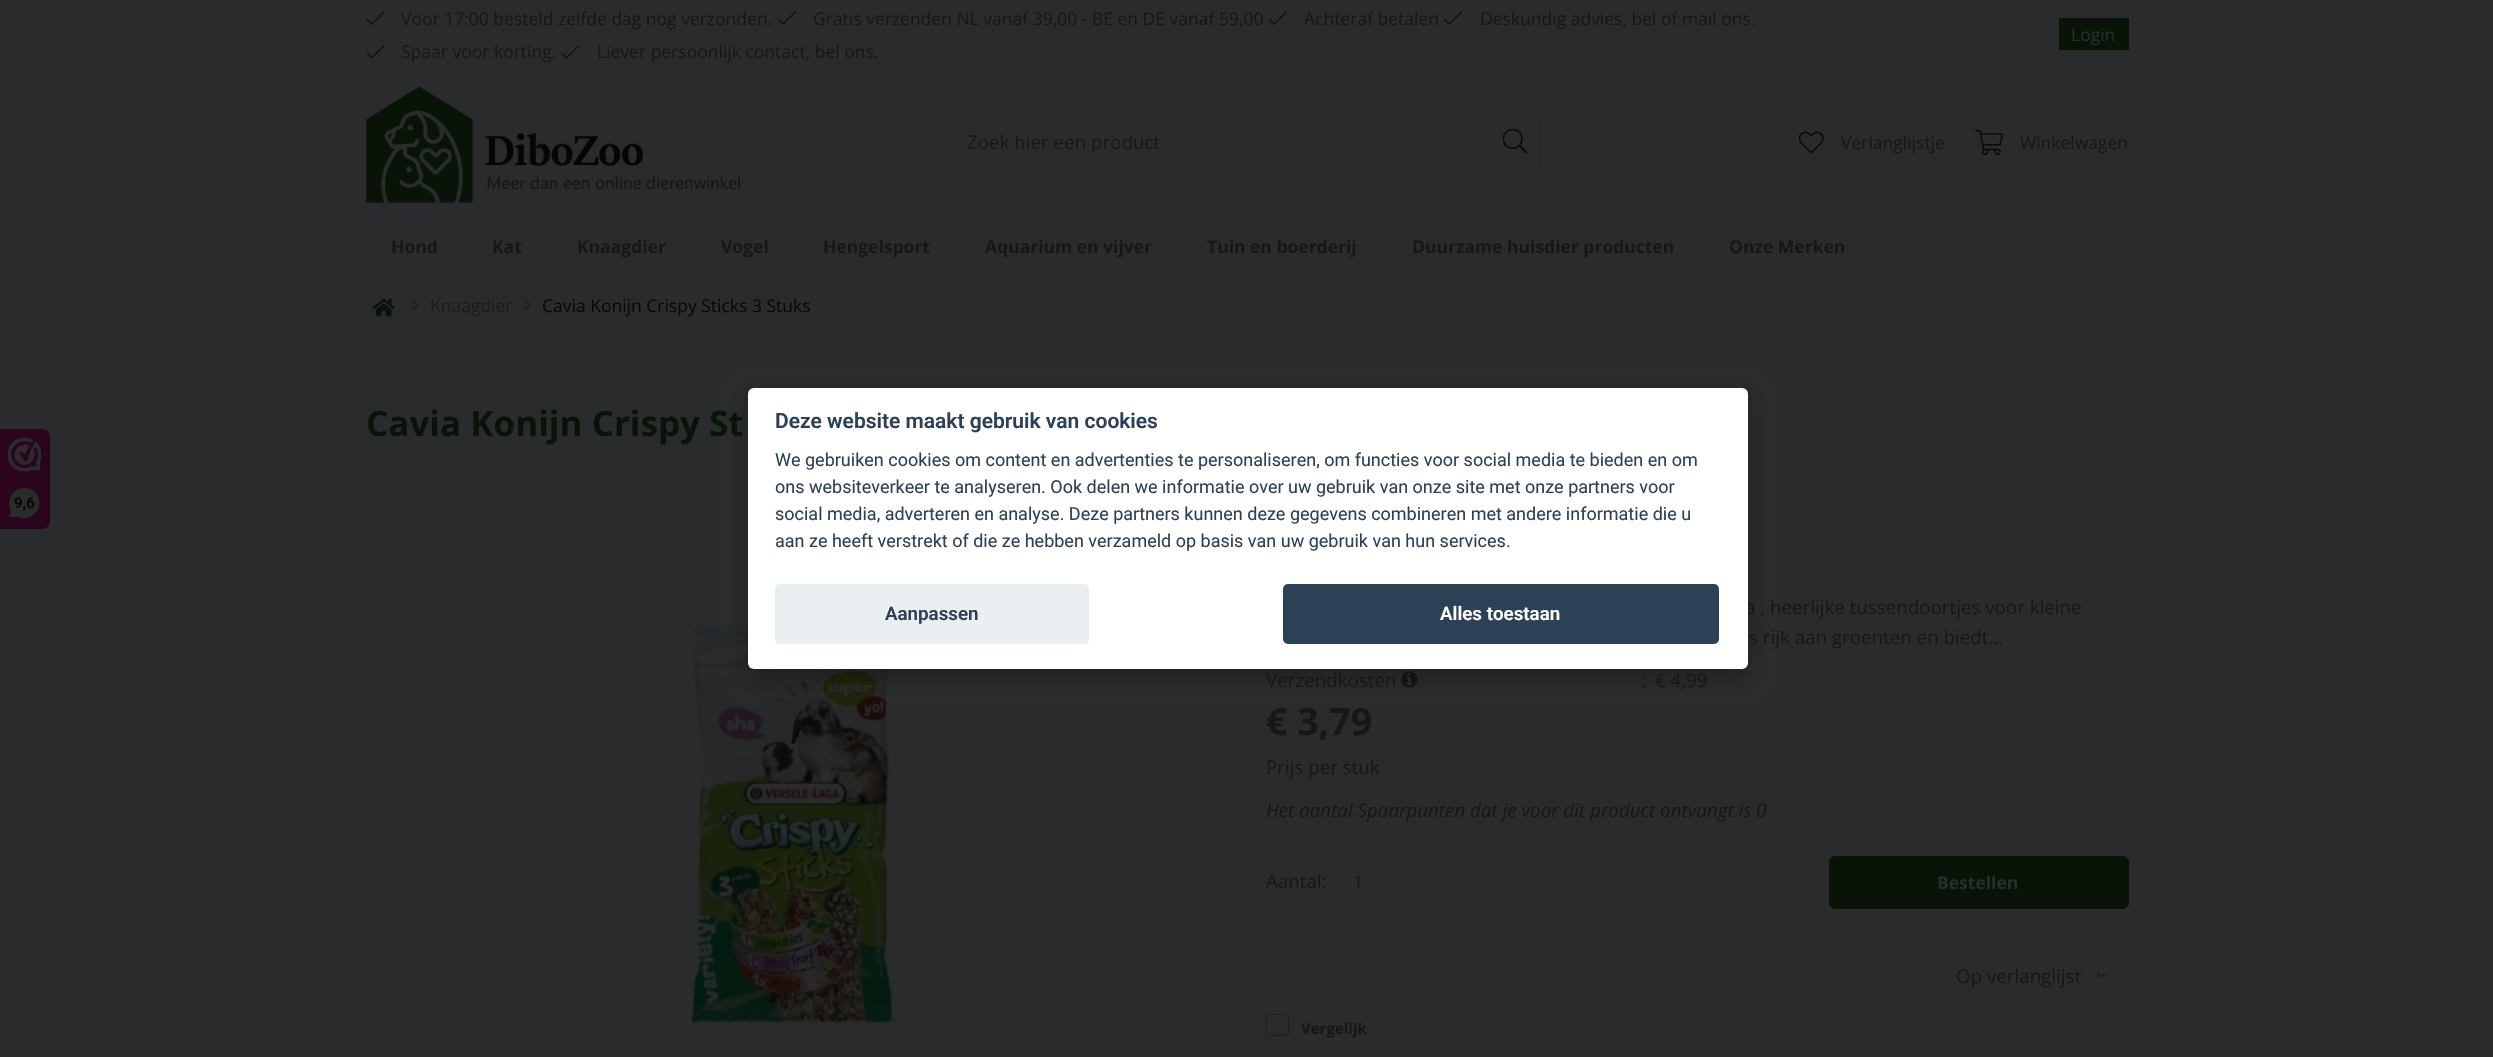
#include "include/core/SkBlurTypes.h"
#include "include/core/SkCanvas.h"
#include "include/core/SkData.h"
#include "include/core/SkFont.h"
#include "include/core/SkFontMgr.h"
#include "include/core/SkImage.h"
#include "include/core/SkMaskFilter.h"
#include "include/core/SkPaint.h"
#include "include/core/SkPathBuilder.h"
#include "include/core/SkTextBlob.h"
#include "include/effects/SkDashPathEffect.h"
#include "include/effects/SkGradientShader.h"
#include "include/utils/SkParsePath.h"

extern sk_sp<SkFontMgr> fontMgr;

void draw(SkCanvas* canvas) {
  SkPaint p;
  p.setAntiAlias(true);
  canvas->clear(SkColorSetRGB(42, 43, 45));
  canvas->drawImageRect(SkImages::DeferredFromEncodedData(SkData::MakeFromFileName("images/1.png")), SkRect::MakeLTRB(366, 11, 384, 25), SkSamplingOptions());
  canvas->drawImageRect(SkImages::DeferredFromEncodedData(SkData::MakeFromFileName("images/2.png")), SkRect::MakeLTRB(778, 11, 796, 25), SkSamplingOptions());
  canvas->drawImageRect(SkImages::DeferredFromEncodedData(SkData::MakeFromFileName("images/3.png")), SkRect::MakeLTRB(1269, 11, 1288, 25), SkSamplingOptions());
  canvas->drawImageRect(SkImages::DeferredFromEncodedData(SkData::MakeFromFileName("images/3.png")), SkRect::MakeLTRB(1444, 11, 1463, 25), SkSamplingOptions());
  canvas->drawImageRect(SkImages::DeferredFromEncodedData(SkData::MakeFromFileName("images/4.png")), SkRect::MakeLTRB(366, 45, 384, 59), SkSamplingOptions());
  canvas->drawImageRect(SkImages::DeferredFromEncodedData(SkData::MakeFromFileName("images/5.png")), SkRect::MakeLTRB(561, 45, 580, 59), SkSamplingOptions());
  p.setColor(SkColorSetRGB(8, 20, 7));
  canvas->drawRect(SkRect::MakeLTRB(2059, 18, 2129, 50), p);
  canvas->drawImageRect(SkImages::DeferredFromEncodedData(SkData::MakeFromFileName("images/6.png")), SkRect::MakeLTRB(366, 86, 740, 203), SkSamplingOptions());
  p.setStyle(SkPaint::kStroke_Style);
  p.setStrokeWidth(1);
  p.setColor(SkColorSetRGB(39, 40, 42));
  canvas->drawRect(SkRect::MakeLTRB(954.5f, 116.5f, 1489.5f, 165.5f), p);
  p.setStyle(SkPaint::kFill_Style);
  canvas->drawRect(SkRect::MakeLTRB(1490, 116, 1541, 117), p);
  canvas->drawRect(SkRect::MakeLTRB(1540, 116, 1541, 166), p);
  canvas->drawRect(SkRect::MakeLTRB(1490, 165, 1541, 166), p);
  canvas->drawImageRect(SkImages::DeferredFromEncodedData(SkData::MakeFromFileName("images/7.png")), SkRect::MakeLTRB(1503, 129, 1528, 154), SkSamplingOptions());
  canvas->drawImageRect(SkImages::DeferredFromEncodedData(SkData::MakeFromFileName("images/8.png")), SkRect::MakeLTRB(1799, 131, 1824, 154), SkSamplingOptions());
  canvas->drawImageRect(SkImages::DeferredFromEncodedData(SkData::MakeFromFileName("images/9.png")), SkRect::MakeLTRB(1975, 130, 2003, 155), SkSamplingOptions());
  p.setColor(SkColorSetRGB(39, 41, 42));
  canvas->drawRect(SkRect::MakeLTRB(0, 333, 2493, 334), p);
  canvas->drawImageRect(SkImages::DeferredFromEncodedData(SkData::MakeFromFileName("images/10.png")), SkRect::MakeLTRB(373, 298, 395, 317), SkSamplingOptions());
  canvas->drawImageRect(SkImages::DeferredFromEncodedData(SkData::MakeFromFileName("images/11.png")), SkRect::MakeLTRB(412, 300, 418, 310), SkSamplingOptions());
  canvas->drawImageRect(SkImages::DeferredFromEncodedData(SkData::MakeFromFileName("images/12.png")), SkRect::MakeLTRB(524, 300, 531, 310), SkSamplingOptions());
  canvas->drawImageRect(SkImages::DeferredFromEncodedData(SkData::MakeFromFileName("images/13.png")), SkRect::MakeLTRB(690, 622, 901, 1027), SkSamplingOptions());
  canvas->drawImageRect(SkImages::DeferredFromEncodedData(SkData::MakeFromFileName("images/14.png")), SkRect::MakeLTRB(1401, 671, 1418, 688), SkSamplingOptions());
  p.setStyle(SkPaint::kStroke_Style);
  canvas->drawRoundRect(SkRect::MakeLTRB(1340.5f, 856.5f, 1433.5f, 905.5f), 2, 2, p);
  p.setStyle(SkPaint::kFill_Style);
  p.setColor(SkColorSetRGB(8, 20, 7));
  canvas->drawRoundRect(SkRect::MakeLTRB(1829.5f, 856.5f, 2128.5f, 908.5f), 5.5f, 5.5f, p);
  p.setStyle(SkPaint::kStroke_Style);
  canvas->drawRoundRect(SkRect::MakeLTRB(1829.5f, 856.5f, 2128.5f, 908.5f), 5.5f, 5.5f, p);
  p.setColor(SkColorSetRGB(39, 41, 43));
  canvas->drawRoundRect(SkRect::MakeLTRB(2093.5f, 966.5f, 2109.5f, 983.5f), 3.5f, 3.5f, p);
  canvas->drawImageRect(SkImages::DeferredFromEncodedData(SkData::MakeFromFileName("images/15.png")), SkRect::MakeLTRB(2096, 972, 2106, 978), SkSamplingOptions());
  p.setColor(SkColorSetRGB(28, 30, 32));
  canvas->drawRoundRect(SkRect::MakeLTRB(1266.5f, 1014.5f, 1288.5f, 1035.5f), 2, 2, p);
  p.setStyle(SkPaint::kFill_Style);
  p.setColor(SkColorSetRGB(42, 5, 28));
  canvas->drawPath(SkPathBuilder().moveTo(0, 429).lineTo(42, 429).cubicTo(46.5f, 429, 50, 432.5f, 50, 437).lineTo(50, 521).cubicTo(50, 525.5f, 46.5f, 529, 42, 529).lineTo(0, 529).close().detach(), p);
  canvas->drawImageRect(SkImages::DeferredFromEncodedData(SkData::MakeFromFileName("images/16.png")), SkRect::MakeLTRB(8, 438, 41, 471), SkSamplingOptions());
  p.setColor(SkColorSetRGB(36, 5, 25));
  canvas->drawRect(SkRect::MakeLTRB(0, 478, 49, 479), p);
  canvas->drawImageRect(SkImages::DeferredFromEncodedData(SkData::MakeFromFileName("images/17.png")), SkRect::MakeLTRB(9, 487, 40, 519), SkSamplingOptions());
  p.setColor(SkColorSetARGB(71, 2, 2, 3));
  p.setMaskFilter(SkMaskFilter::MakeBlur(kNormal_SkBlurStyle, 11.5f));
  canvas->drawRoundRect(SkRect::MakeLTRB(748, 396, 1748, 678), 6, 6, p);
  p.setMaskFilter(nullptr);
  SkFont font1(fontMgr->matchFamilyStyle("Open Sans", SkFontStyle::Normal()), 17.5f);
  font1.setSubpixel(true);
  p.setColor(SkColorSetRGB(21, 23, 24));
  canvas->drawString("Voor 17:00 besteld zelfde dag nog verzonden.", 401, 25, font1, p);
  canvas->drawString("Gratis verzenden NL vanaf 39,00 - BE en DE vanaf 59,00", 813, 25, font1, p);
  canvas->drawString("Achteraf betalen", 1304, 25, font1, p);
  canvas->drawString("Deskundig advies, bel of mail ons.", 1480, 25, font1, p);
  canvas->drawString("Spaar voor korting.", 401, 58, font1, p);
  canvas->drawString("Liever persoonlijk contact, bel ons.", 597, 58, font1, p);
  p.setColor(SkColorSetRGB(42, 43, 45));
  canvas->drawString("Login", 2071, 41, font1, p);
  canvas->save();
  canvas->clipRect(SkRect::MakeLTRB(968, 129, 1476, 154));
  SkFont font2(fontMgr->matchFamilyStyle("Open Sans", SkFontStyle::Normal()), 18.75f);
  font2.setSubpixel(true);
  p.setColor(SkColorSetRGB(21, 23, 24));
  canvas->drawString("Zoek hier een product", 967, 149, font2, p);
  canvas->restore();
  canvas->drawString("Verlanglijstje", 1841, 149, font1, p);
  canvas->drawString("Winkelwagen", 2020, 149, font1, p);
  SkFont font3(fontMgr->matchFamilyStyle("Open Sans", SkFontStyle::Bold()), 17.5f);
  font3.setSubpixel(true);
  canvas->drawString("Hond", 391, 253, font3, p);
  canvas->drawString("Kat", 492, 253, font3, p);
  canvas->drawString("Knaagdier", 577, 253, font3, p);
  canvas->drawString("Vogel", 721, 253, font3, p);
  canvas->drawString("Hengelsport", 823, 253, font3, p);
  canvas->drawString("Aquarium en vijver", 985, 253, font3, p);
  canvas->drawString("Tuin en boerderij", 1207, 253, font3, p);
  canvas->drawString("Duurzame huisdier producten", 1412, 253, font3, p);
  canvas->drawString("Onze Merken", 1729, 253, font3, p);
  p.setColor(SkColorSetRGB(26, 28, 31));
  canvas->drawString("Knaagdier", 430, 312, font1, p);
  p.setColor(SkColorSetRGB(8, 9, 11));
  canvas->drawString("Cavia Konijn Crispy Sticks 3 Stuks", 542, 312, font1, p);
  SkFont font4(fontMgr->matchFamilyStyle("Open Sans", SkFontStyle::Bold()), 35);
  font4.setSubpixel(true);
  p.setColor(SkColorSetRGB(8, 20, 7));
  canvas->drawString("Cavia Konijn Crispy St", 366, 436, font4, p);
  p.setColor(SkColorSetRGB(21, 23, 24));
  canvas->drawString("a , heerlijke tussendoortjes voor kleine", 1745, 614, font2, p);
  canvas->drawString("s rijk aan groenten en biedt...", 1749, 644, font2, p);
  canvas->drawString("Verzendkosten", 1266, 687, font2, p);
  canvas->drawString(":", 1641, 687, font2, p);
  canvas->drawString("€ 4,99", 1655, 687, font2, p);
  SkFont font5(fontMgr->matchFamilyStyle("Open Sans", SkFontStyle::Bold()), 37.5f);
  font5.setSubpixel(true);
  canvas->drawString("€ 3,79", 1266, 735, font5, p);
  canvas->drawString("Prijs per stuk", 1266, 774, font2, p);
  SkFont font6(fontMgr->matchFamilyStyle("Open Sans", SkFontStyle::Italic()), 18.75f);
  font6.setSubpixel(true);
  canvas->drawString("Het aantal Spaarpunten dat je voor dit product ontvangt is 0", 1266, 817, font6, p);
  canvas->drawString("Aantal:", 1266, 888, font2, p);
  canvas->drawString("1", 1353, 888, font1, p);
  p.setColor(SkColorSetRGB(42, 43, 45));
  canvas->drawString("Bestellen", 1937, 889, font3, p);
  p.setColor(SkColorSetRGB(21, 23, 24));
  canvas->drawString("Op verlanglijst", 1956, 983, font2, p);
  SkFont font7(fontMgr->matchFamilyStyle("Open Sans", SkFontStyle::Bold()), 15);
  font7.setSubpixel(true);
  canvas->drawString("Vergelijk", 1301, 1034, font7, p);
  SkFont font8(fontMgr->matchFamilyStyle("Roboto", SkFontStyle::Bold()), 15);
  font8.setSubpixel(true);
  p.setColor(SkColorSetRGB(8, 9, 11));
  canvas->drawString("9,6", 14, 508, font8, p);
  p.setColor(SK_ColorWHITE);
  canvas->drawRoundRect(SkRect::MakeLTRB(748, 388, 1748, 669), 6, 6, p);
  SkFont font9(fontMgr->matchFamilyStyle("Roboto", SkFontStyle(600, SkFontStyle::kNormal_Width, SkFontStyle::kUpright_Slant)), 21);
  font9.setSubpixel(true);
  p.setColor(SkColorSetRGB(45, 65, 86));
  canvas->drawString("Deze website maakt gebruik van cookies", 775, 428, font9, p);
  SkFont font10(fontMgr->matchFamilyStyle("Roboto", SkFontStyle::Normal()), 18);
  font10.setSubpixel(true);
  canvas->drawString("We gebruiken cookies om content en advertenties te personaliseren, om functies voor social media te bieden en om", 775, 466, font10, p);
  canvas->drawString("ons websiteverkeer te analyseren. Ook delen we informatie over uw gebruik van onze site met onze partners voor", 775, 493, font10, p);
  canvas->drawString("social media, adverteren en analyse. Deze partners kunnen deze gegevens combineren met andere informatie die u", 775, 520, font10, p);
  canvas->drawString("aan ze heeft verstrekt of die ze hebben verzameld op basis van uw gebruik van hun services.", 775, 547, font10, p);
  p.setColor(SkColorSetRGB(234, 239, 242));
  canvas->drawRoundRect(SkRect::MakeLTRB(775, 584, 1089, 644), 5, 5, p);
  SkFont font11(fontMgr->matchFamilyStyle("Roboto", SkFontStyle(600, SkFontStyle::kNormal_Width, SkFontStyle::kUpright_Slant)), 18.75f);
  font11.setSubpixel(true);
  p.setColor(SkColorSetRGB(45, 65, 86));
  canvas->drawString("Aanpassen", 885, 620, font11, p);
  canvas->drawRoundRect(SkRect::MakeLTRB(1283, 584, 1719, 644), 5, 5, p);
  p.setColor(SK_ColorWHITE);
  canvas->drawString("Alles toestaan", 1440, 620, font11, p);
}
